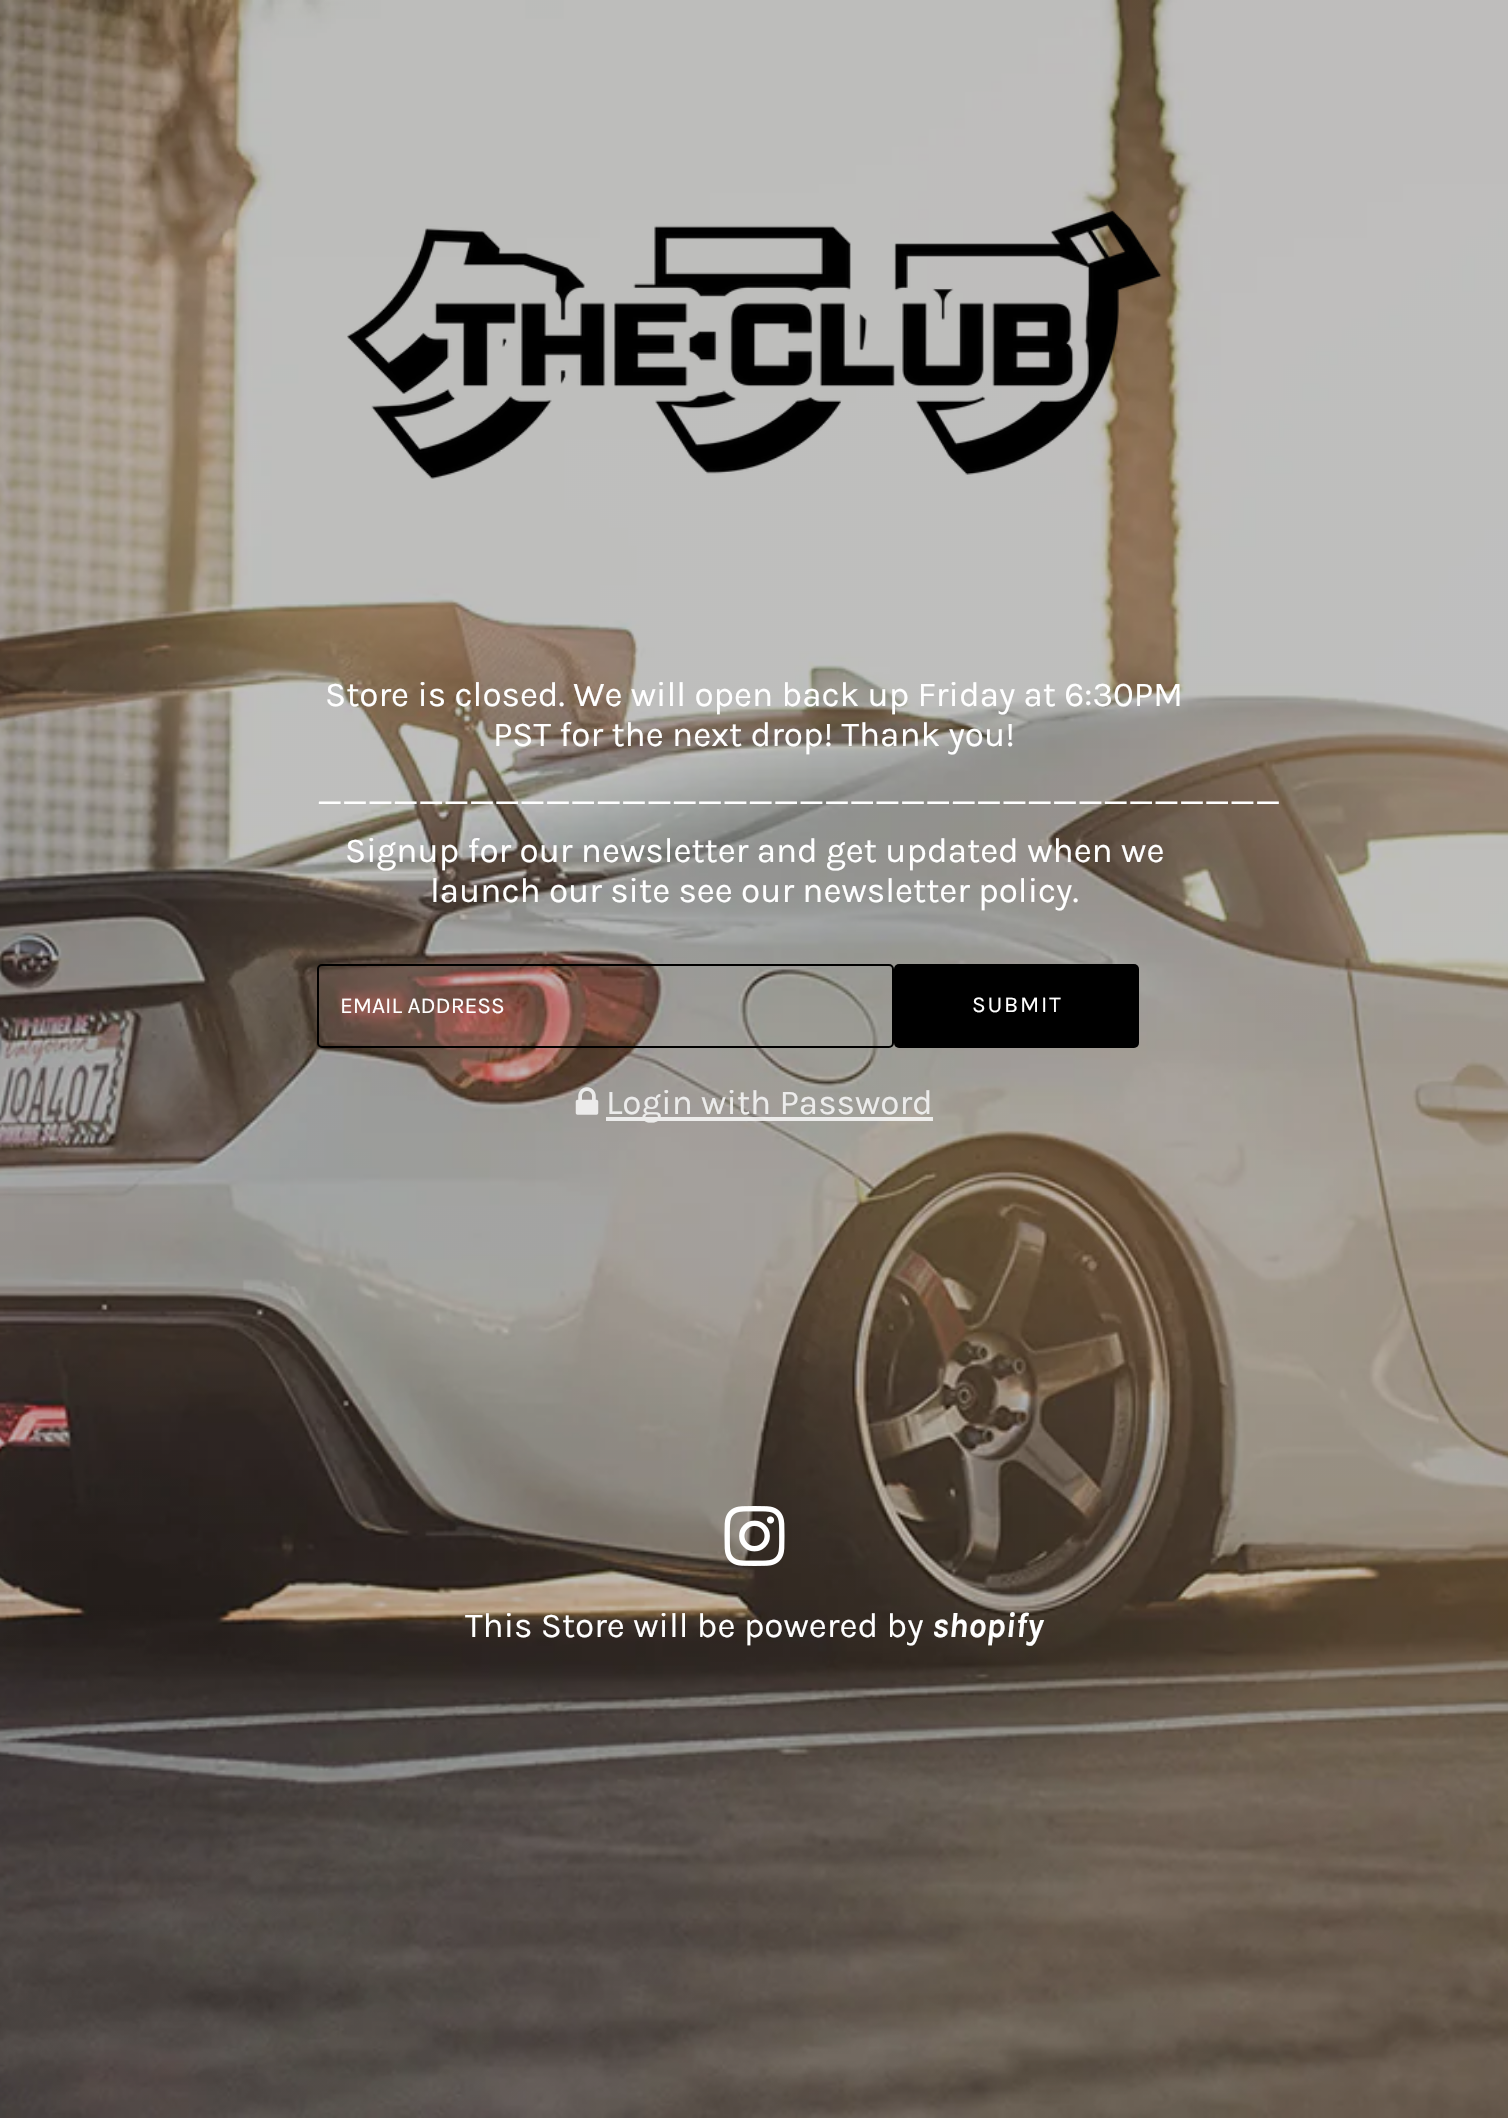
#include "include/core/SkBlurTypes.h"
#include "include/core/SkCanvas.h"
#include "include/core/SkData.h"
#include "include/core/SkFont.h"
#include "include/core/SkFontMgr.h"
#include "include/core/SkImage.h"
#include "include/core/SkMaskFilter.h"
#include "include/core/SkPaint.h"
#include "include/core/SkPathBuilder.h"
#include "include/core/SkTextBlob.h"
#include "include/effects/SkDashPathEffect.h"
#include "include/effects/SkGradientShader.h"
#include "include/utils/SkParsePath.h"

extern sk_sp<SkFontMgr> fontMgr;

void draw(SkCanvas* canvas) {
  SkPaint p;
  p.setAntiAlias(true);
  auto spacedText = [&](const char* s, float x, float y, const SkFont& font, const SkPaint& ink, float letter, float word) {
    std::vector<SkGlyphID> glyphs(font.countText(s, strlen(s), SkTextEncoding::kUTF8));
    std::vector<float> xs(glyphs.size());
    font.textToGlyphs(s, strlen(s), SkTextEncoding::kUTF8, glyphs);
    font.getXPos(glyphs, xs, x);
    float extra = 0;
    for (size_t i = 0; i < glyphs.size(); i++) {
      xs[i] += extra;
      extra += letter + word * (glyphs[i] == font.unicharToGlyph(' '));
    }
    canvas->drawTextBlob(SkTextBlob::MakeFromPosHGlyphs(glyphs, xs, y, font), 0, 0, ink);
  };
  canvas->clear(SK_ColorWHITE);
  canvas->drawImageRect(SkImages::DeferredFromEncodedData(SkData::MakeFromFileName("images/1.png")), SkRect::MakeLTRB(0, 0, 1508, 2118), SkSamplingOptions());
  canvas->drawImageRect(SkImages::DeferredFromEncodedData(SkData::MakeFromFileName("images/2.png")), SkRect::MakeLTRB(347, 210, 1162, 479), SkSamplingOptions());
  p.setStyle(SkPaint::kStroke_Style);
  p.setStrokeWidth(2);
  p.setColor(SK_ColorBLACK);
  canvas->drawRoundRect(SkRect::MakeLTRB(318, 965, 893, 1047), 4, 4, p);
  p.setStyle(SkPaint::kFill_Style);
  canvas->drawRoundRect(SkRect::MakeLTRB(894, 964, 1139, 1048), 5, 5, p);
  canvas->drawImageRect(SkImages::DeferredFromEncodedData(SkData::MakeFromFileName("images/3.png")), SkRect::MakeLTRB(575, 1087, 599, 1115), SkSamplingOptions());
  p.setColor(SkColorSetARGB(204, 255, 255, 255));
  canvas->drawRect(SkRect::MakeLTRB(606, 1117, 933, 1121), p);
  canvas->drawImageRect(SkImages::DeferredFromEncodedData(SkData::MakeFromFileName("images/4.png")), SkRect::MakeLTRB(724, 1506, 785, 1566), SkSamplingOptions());
  SkFont font1(fontMgr->matchFamilyStyle("Karla", SkFontStyle::Normal()), 35);
  font1.setSubpixel(true);
  p.setColor(SK_ColorWHITE);
  canvas->drawString("Store is closed. We will open back up Friday at 6:30PM", 325, 706, font1, p);
  canvas->drawString("PST for the next drop! Thank you!", 493, 746, font1, p);
  canvas->drawString("______________________________________", 317, 804, font1, p);
  canvas->drawString("Signup for our newsletter and get updated when we", 345, 862, font1, p);
  canvas->drawString("launch our site see our newsletter policy.", 430, 902, font1, p);
  SkFont font2(fontMgr->matchFamilyStyle("Karla", SkFontStyle::Normal()), 22.75f);
  font2.setSubpixel(true);
  canvas->drawString("EMAIL ADDRESS", 340, 1013, font2, p);
  spacedText("SUBMIT", 972, 1012, font2, p, 1.75f, 0);
  p.setColor(SkColorSetRGB(236, 236, 235));
  canvas->drawString("Login with Password", 606, 1114, font1, p);
  p.setColor(SK_ColorWHITE);
  canvas->drawString("This Store will be powered by", 465, 1637, font1, p);
  SkFont font3(fontMgr->matchFamilyStyle("Karla", SkFontStyle::BoldItalic()), 35);
  font3.setSubpixel(true);
  canvas->drawString("shopify", 932, 1637, font3, p);
}
